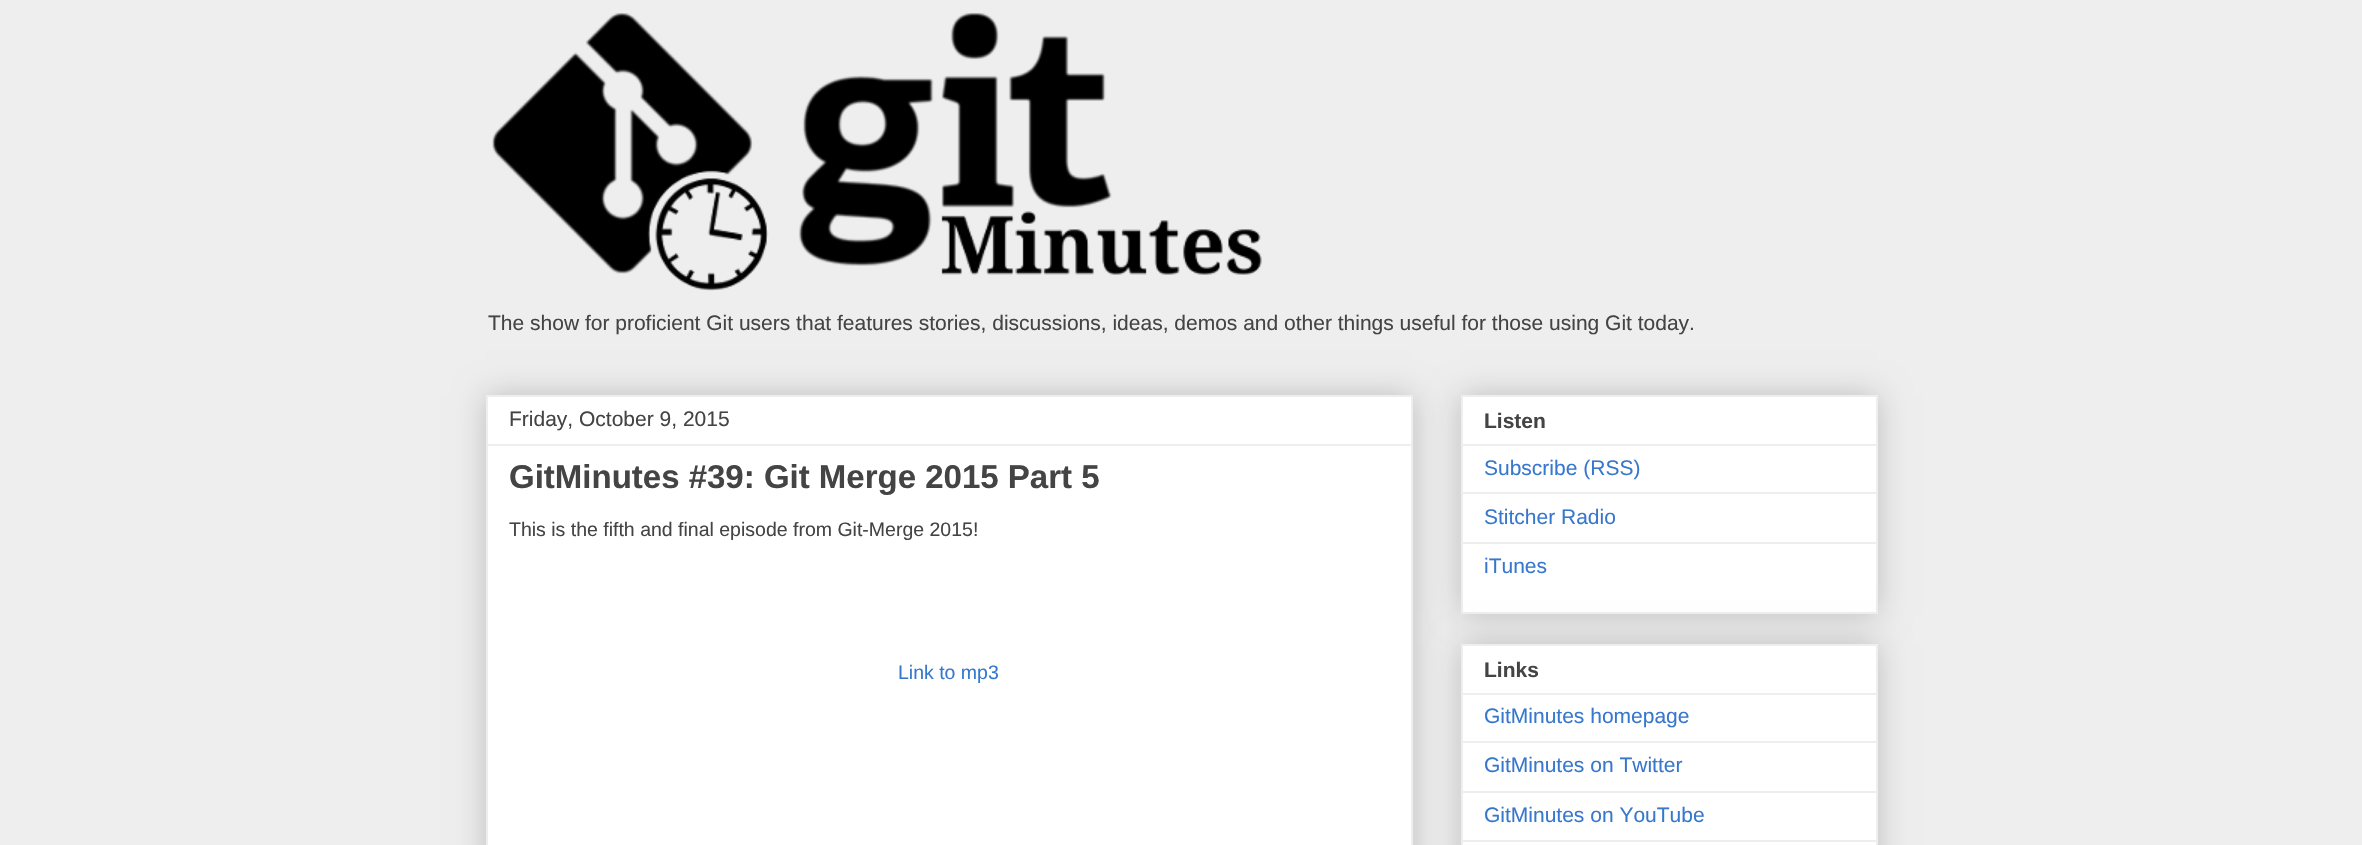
#include "include/core/SkBlurTypes.h"
#include "include/core/SkCanvas.h"
#include "include/core/SkData.h"
#include "include/core/SkFont.h"
#include "include/core/SkFontMgr.h"
#include "include/core/SkImage.h"
#include "include/core/SkMaskFilter.h"
#include "include/core/SkPaint.h"
#include "include/core/SkPathBuilder.h"
#include "include/core/SkTextBlob.h"
#include "include/effects/SkDashPathEffect.h"
#include "include/effects/SkGradientShader.h"
#include "include/utils/SkParsePath.h"

extern sk_sp<SkFontMgr> fontMgr;

void draw(SkCanvas* canvas) {
  SkPaint p;
  p.setAntiAlias(true);
  canvas->clear(SkColorSetRGB(238, 238, 238));
  canvas->drawImageRect(SkImages::DeferredFromEncodedData(SkData::MakeFromFileName("images/1.png")), SkRect::MakeLTRB(492, 12, 1262, 291), SkSamplingOptions());
  p.setColor(SkColorSetARGB(51, 0, 0, 0));
  p.setMaskFilter(SkMaskFilter::MakeBlur(kNormal_SkBlurStyle, 15));
  canvas->drawRect(SkRect::MakeLTRB(486, 395, 1413, 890), p);
  p.setMaskFilter(nullptr);
  p.setColor(SK_ColorWHITE);
  canvas->drawRect(SkRect::MakeLTRB(487, 396, 1412, 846), p);
  p.setStyle(SkPaint::kStroke_Style);
  p.setStrokeWidth(2);
  p.setColor(SkColorSetRGB(238, 238, 238));
  canvas->drawRect(SkRect::MakeLTRB(487, 396, 1412, 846), p);
  p.setStyle(SkPaint::kFill_Style);
  canvas->drawRect(SkRect::MakeLTRB(488, 444, 1412, 446), p);
  p.setColor(SkColorSetARGB(51, 0, 0, 0));
  p.setMaskFilter(SkMaskFilter::MakeBlur(kNormal_SkBlurStyle, 15));
  canvas->drawRect(SkRect::MakeLTRB(1461, 395, 1878, 614), p);
  p.setMaskFilter(nullptr);
  p.setColor(SK_ColorWHITE);
  canvas->drawRect(SkRect::MakeLTRB(1462, 396, 1877, 613), p);
  p.setStyle(SkPaint::kStroke_Style);
  p.setColor(SkColorSetRGB(238, 238, 238));
  canvas->drawRect(SkRect::MakeLTRB(1462, 396, 1877, 613), p);
  p.setStyle(SkPaint::kFill_Style);
  canvas->drawRect(SkRect::MakeLTRB(1463, 444, 1877, 446), p);
  canvas->drawRect(SkRect::MakeLTRB(1463, 492, 1877, 494), p);
  canvas->drawRect(SkRect::MakeLTRB(1463, 542, 1877, 544), p);
  p.setColor(SkColorSetARGB(51, 0, 0, 0));
  p.setMaskFilter(SkMaskFilter::MakeBlur(kNormal_SkBlurStyle, 15));
  canvas->drawRect(SkRect::MakeLTRB(1461, 644, 1878, 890), p);
  p.setMaskFilter(nullptr);
  p.setColor(SK_ColorWHITE);
  canvas->drawRect(SkRect::MakeLTRB(1462, 645, 1877, 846), p);
  p.setStyle(SkPaint::kStroke_Style);
  p.setColor(SkColorSetRGB(238, 238, 238));
  canvas->drawRect(SkRect::MakeLTRB(1462, 645, 1877, 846), p);
  p.setStyle(SkPaint::kFill_Style);
  canvas->drawRect(SkRect::MakeLTRB(1463, 693, 1877, 695), p);
  canvas->drawRect(SkRect::MakeLTRB(1463, 741, 1877, 743), p);
  canvas->drawRect(SkRect::MakeLTRB(1463, 791, 1877, 793), p);
  canvas->drawRect(SkRect::MakeLTRB(1463, 840, 1877, 842), p);
  SkFont font1(fontMgr->matchFamilyStyle("Liberation Sans", SkFontStyle::Normal()), 21);
  font1.setSubpixel(true);
  p.setColor(SkColorSetRGB(68, 68, 68));
  canvas->drawString("The show for proficient Git users that features stories, discussions, ideas, demos and other things useful for those using Git today.", 488, 330, font1, p);
  canvas->drawString("Friday, October 9, 2015", 509, 426, font1, p);
  SkFont font2(fontMgr->matchFamilyStyle("Liberation Sans", SkFontStyle::Bold()), 33);
  font2.setSubpixel(true);
  canvas->drawString("GitMinutes #39: Git Merge 2015 Part 5", 509, 488, font2, p);
  SkFont font3(fontMgr->matchFamilyStyle("Liberation Sans", SkFontStyle::Normal()), 19.5f);
  font3.setSubpixel(true);
  canvas->drawString("This is the fifth and final episode from Git-Merge 2015!", 509, 536, font3, p);
  p.setColor(SkColorSetRGB(55, 120, 205));
  canvas->drawString("Link to mp3", 898, 679, font3, p);
  SkFont font4(fontMgr->matchFamilyStyle("Liberation Sans", SkFontStyle::Bold()), 21);
  font4.setSubpixel(true);
  p.setColor(SkColorSetRGB(68, 68, 68));
  canvas->drawString("Listen", 1484, 428, font4, p);
  p.setColor(SkColorSetRGB(55, 120, 205));
  canvas->drawString("Subscribe (RSS)", 1484, 475, font1, p);
  canvas->drawString("Stitcher Radio", 1484, 524, font1, p);
  canvas->drawString("iTunes", 1484, 573, font1, p);
  p.setColor(SkColorSetRGB(68, 68, 68));
  canvas->drawString("Links", 1484, 677, font4, p);
  p.setColor(SkColorSetRGB(55, 120, 205));
  canvas->drawString("GitMinutes homepage", 1484, 723, font1, p);
  canvas->drawString("GitMinutes on Twitter", 1484, 772, font1, p);
  canvas->drawString("GitMinutes on YouTube", 1484, 822, font1, p);
}
